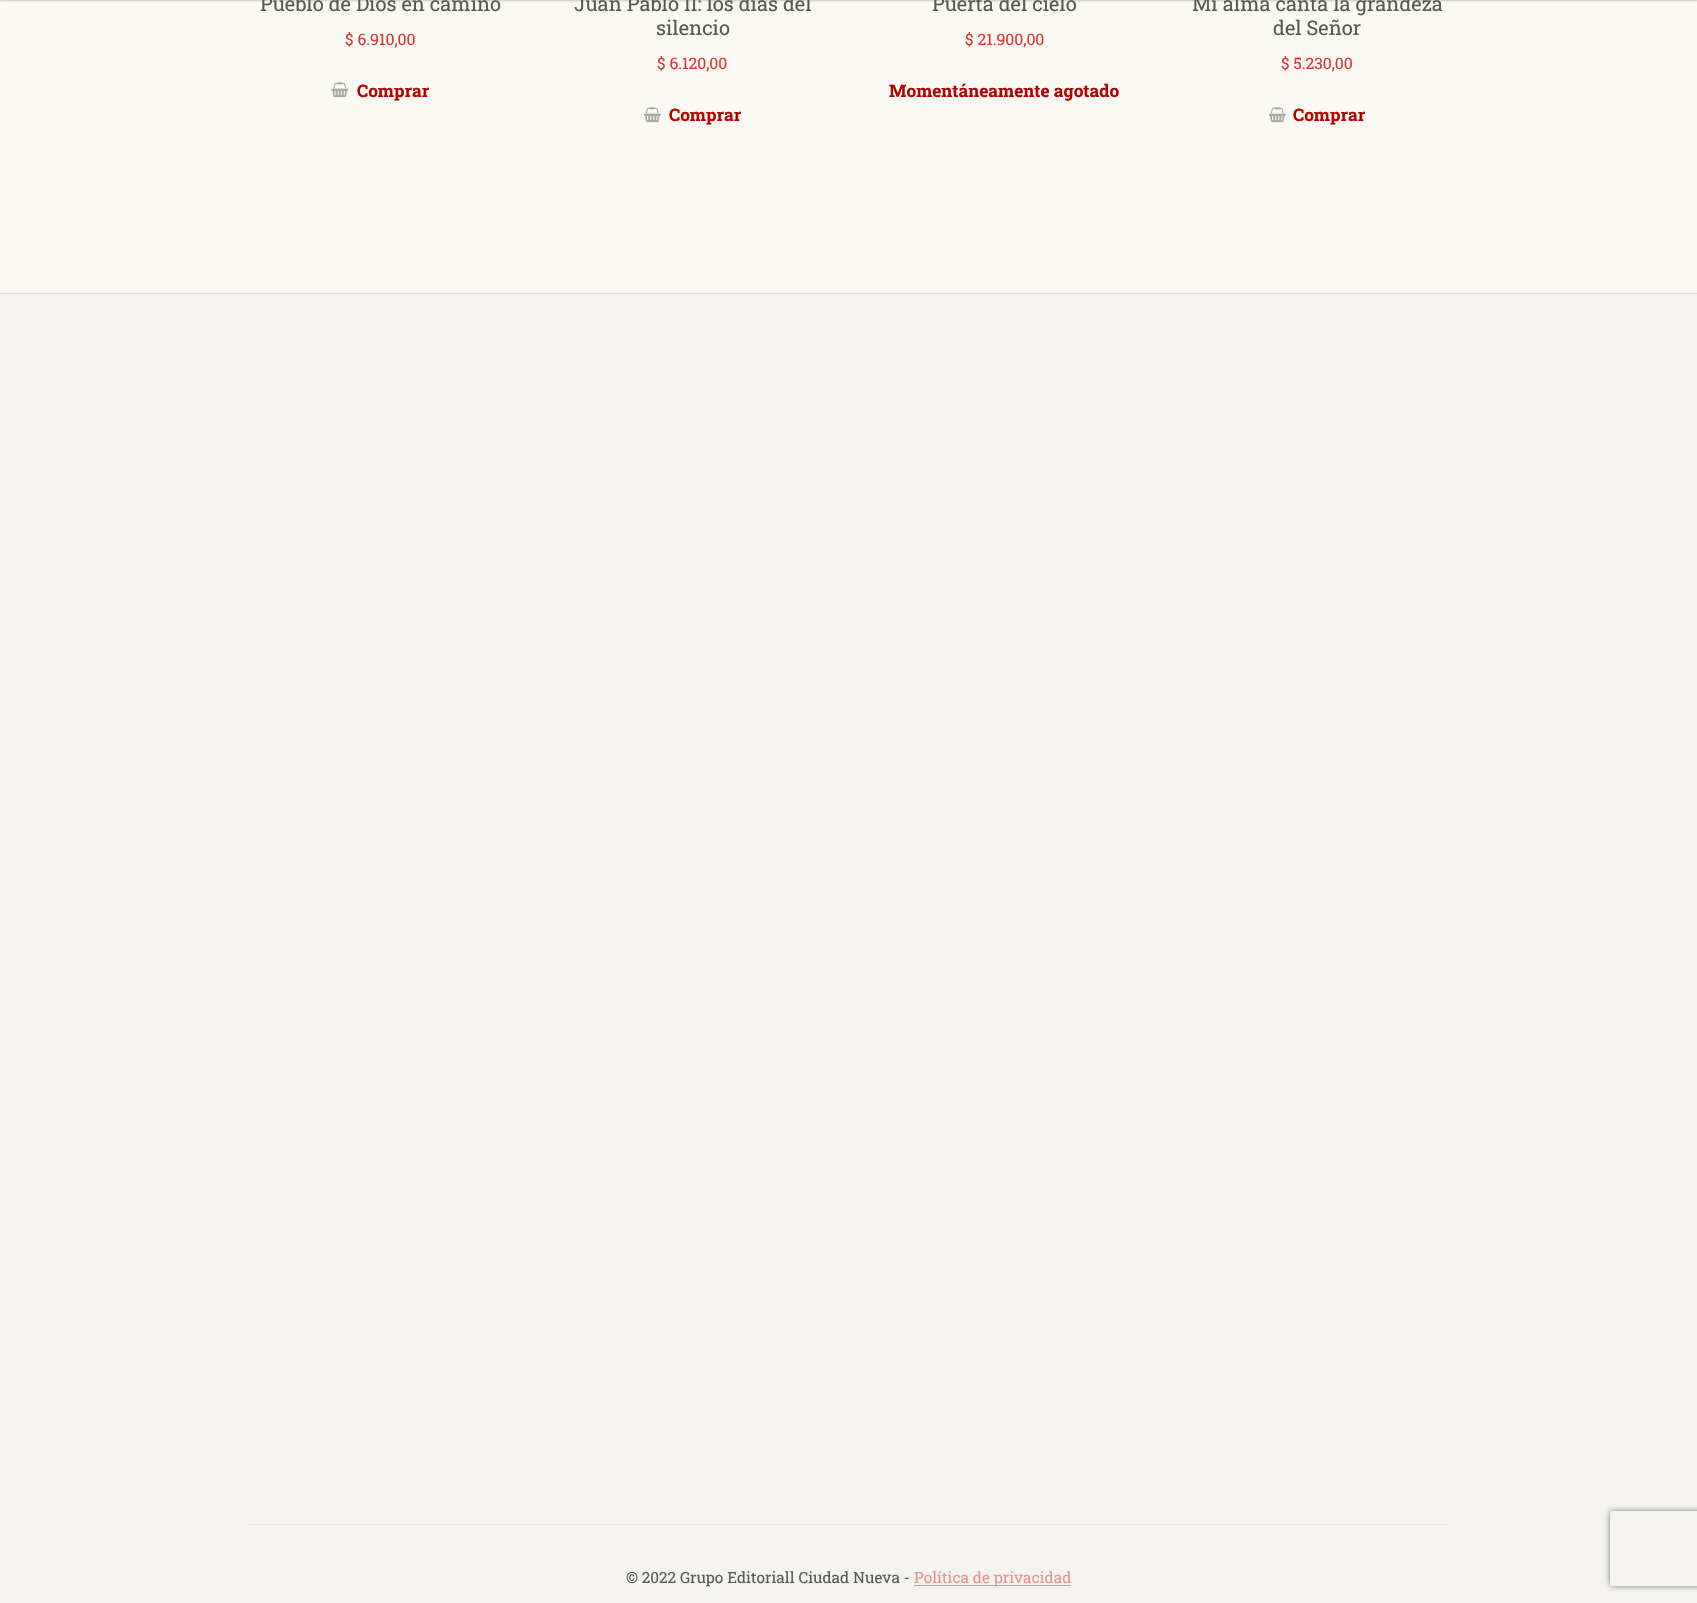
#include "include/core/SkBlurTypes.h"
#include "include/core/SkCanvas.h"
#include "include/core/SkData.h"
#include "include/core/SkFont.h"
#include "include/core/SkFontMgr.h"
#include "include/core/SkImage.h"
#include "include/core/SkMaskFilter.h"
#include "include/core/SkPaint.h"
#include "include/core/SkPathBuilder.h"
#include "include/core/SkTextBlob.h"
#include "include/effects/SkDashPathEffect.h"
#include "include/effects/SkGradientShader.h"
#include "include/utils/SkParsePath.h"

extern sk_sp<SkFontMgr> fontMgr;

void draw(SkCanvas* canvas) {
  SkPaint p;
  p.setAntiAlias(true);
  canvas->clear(SkColorSetRGB(250, 249, 243));
  p.setColor(SkColorSetARGB(51, 0, 0, 0));
  p.setMaskFilter(SkMaskFilter::MakeBlur(kNormal_SkBlurStyle, 1));
  canvas->drawRect(SkRect::MakeLTRB(0, -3, 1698, 1), p);
  p.setMaskFilter(nullptr);
  canvas->drawImageRect(SkImages::DeferredFromEncodedData(SkData::MakeFromFileName("images/1.png")), SkRect::MakeLTRB(331, 82, 349, 98), SkSamplingOptions());
  canvas->drawImageRect(SkImages::DeferredFromEncodedData(SkData::MakeFromFileName("images/2.png")), SkRect::MakeLTRB(643, 107, 661, 123), SkSamplingOptions());
  canvas->drawImageRect(SkImages::DeferredFromEncodedData(SkData::MakeFromFileName("images/2.png")), SkRect::MakeLTRB(1268, 107, 1286, 123), SkSamplingOptions());
  p.setColor(SkColorSetARGB(26, 0, 0, 0));
  p.setMaskFilter(SkMaskFilter::MakeBlur(kNormal_SkBlurStyle, 0.5f));
  canvas->drawRect(SkRect::MakeLTRB(0, 293, 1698, 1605), p);
  p.setMaskFilter(nullptr);
  p.setColor(SkColorSetRGB(244, 243, 239));
  canvas->drawRect(SkRect::MakeLTRB(0, 294, 1697, 1603), p);
  p.setStyle(SkPaint::kStroke_Style);
  p.setStrokeWidth(1.2f);
  p.setColor(SkColorSetRGB(220, 219, 215));
  p.setPathEffect(SkDashPathEffect::Make({{1.25f, 1.25f}}, 0));
  canvas->drawPath(SkPathBuilder().moveTo(250, 1524.5f).lineTo(1447.5f, 1524.5f).detach(), p);
  p.setPathEffect(nullptr);
  p.setStyle(SkPaint::kFill_Style);
  p.setColor(SkColorSetRGB(229, 146, 146));
  canvas->drawRect(SkRect::MakeLTRB(914, 1585, 1071, 1586), p);
  canvas->save();
  canvas->clipPath(SkPathBuilder(SkPathFillType::kEvenOdd).moveTo(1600, 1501).lineTo(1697, 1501).lineTo(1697, 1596).lineTo(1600, 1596).close().moveTo(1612.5f, 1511).lineTo(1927.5f, 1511).cubicTo(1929, 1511, 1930, 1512, 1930, 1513.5f).lineTo(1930, 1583.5f).cubicTo(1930, 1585, 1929, 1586, 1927.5f, 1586).lineTo(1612.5f, 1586).cubicTo(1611, 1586, 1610, 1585, 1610, 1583.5f).lineTo(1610, 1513.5f).cubicTo(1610, 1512, 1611, 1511, 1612.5f, 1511).close().detach(), true);
  p.setColor(SkColorSetRGB(128, 128, 128));
  p.setMaskFilter(SkMaskFilter::MakeBlur(kNormal_SkBlurStyle, 3));
  canvas->drawRoundRect(SkRect::MakeLTRB(1610, 1511, 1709, 1586), 2.5f, 2.5f, p);
  p.setMaskFilter(nullptr);
  canvas->restore();
  SkFont font1(fontMgr->matchFamilyStyle("Roboto Slab", SkFontStyle::Normal()), 20);
  font1.setSubpixel(true);
  p.setColor(SkColorSetRGB(87, 89, 83));
  canvas->drawString("Pueblo de Dios en camino", 260, 11, font1, p);
  SkFont font2(fontMgr->matchFamilyStyle("Roboto Slab", SkFontStyle::Normal()), 15.75f);
  font2.setSubpixel(true);
  p.setColor(SkColorSetRGB(221, 51, 51));
  canvas->drawString("$ 6.910,00", 345, 45, font2, p);
  SkFont font3(fontMgr->matchFamilyStyle("Roboto Slab", SkFontStyle::Bold()), 17.25f);
  font3.setSubpixel(true);
  p.setColor(SkColorSetRGB(181, 1, 1));
  canvas->drawString("Comprar", 357, 97, font3, p);
  p.setColor(SkColorSetRGB(87, 89, 83));
  canvas->drawString("Juan Pablo II: los días del", 574, 11, font1, p);
  canvas->drawString("silencio", 656, 35, font1, p);
  p.setColor(SkColorSetRGB(221, 51, 51));
  canvas->drawString("$ 6.120,00", 657, 69, font2, p);
  p.setColor(SkColorSetRGB(181, 1, 1));
  canvas->drawString("Comprar", 669, 121, font3, p);
  p.setColor(SkColorSetRGB(87, 89, 83));
  canvas->drawString("Puerta del cielo", 932, 11, font1, p);
  p.setColor(SkColorSetRGB(221, 51, 51));
  canvas->drawString("$ 21.900,00", 965, 45, font2, p);
  p.setColor(SkColorSetRGB(181, 1, 1));
  canvas->drawString("Momentáneamente agotado", 889, 97, font3, p);
  p.setColor(SkColorSetRGB(87, 89, 83));
  canvas->drawString("Mi alma canta la grandeza", 1192, 11, font1, p);
  canvas->drawString("del Señor", 1273, 35, font1, p);
  p.setColor(SkColorSetRGB(221, 51, 51));
  canvas->drawString("$ 5.230,00", 1281, 69, font2, p);
  p.setColor(SkColorSetRGB(181, 1, 1));
  canvas->drawString("Comprar", 1293, 121, font3, p);
  SkFont font4(fontMgr->matchFamilyStyle("Roboto Slab", SkFontStyle::Normal()), 15.4f);
  font4.setSubpixel(true);
  p.setColor(SkColorSetRGB(87, 89, 83));
  canvas->drawString("© 2022 Grupo Editoriall Ciudad Nueva -", 626, 1583, font4, p);
  p.setColor(SkColorSetRGB(229, 146, 146));
  canvas->drawString("Política de privacidad", 914, 1583, font4, p);
}
